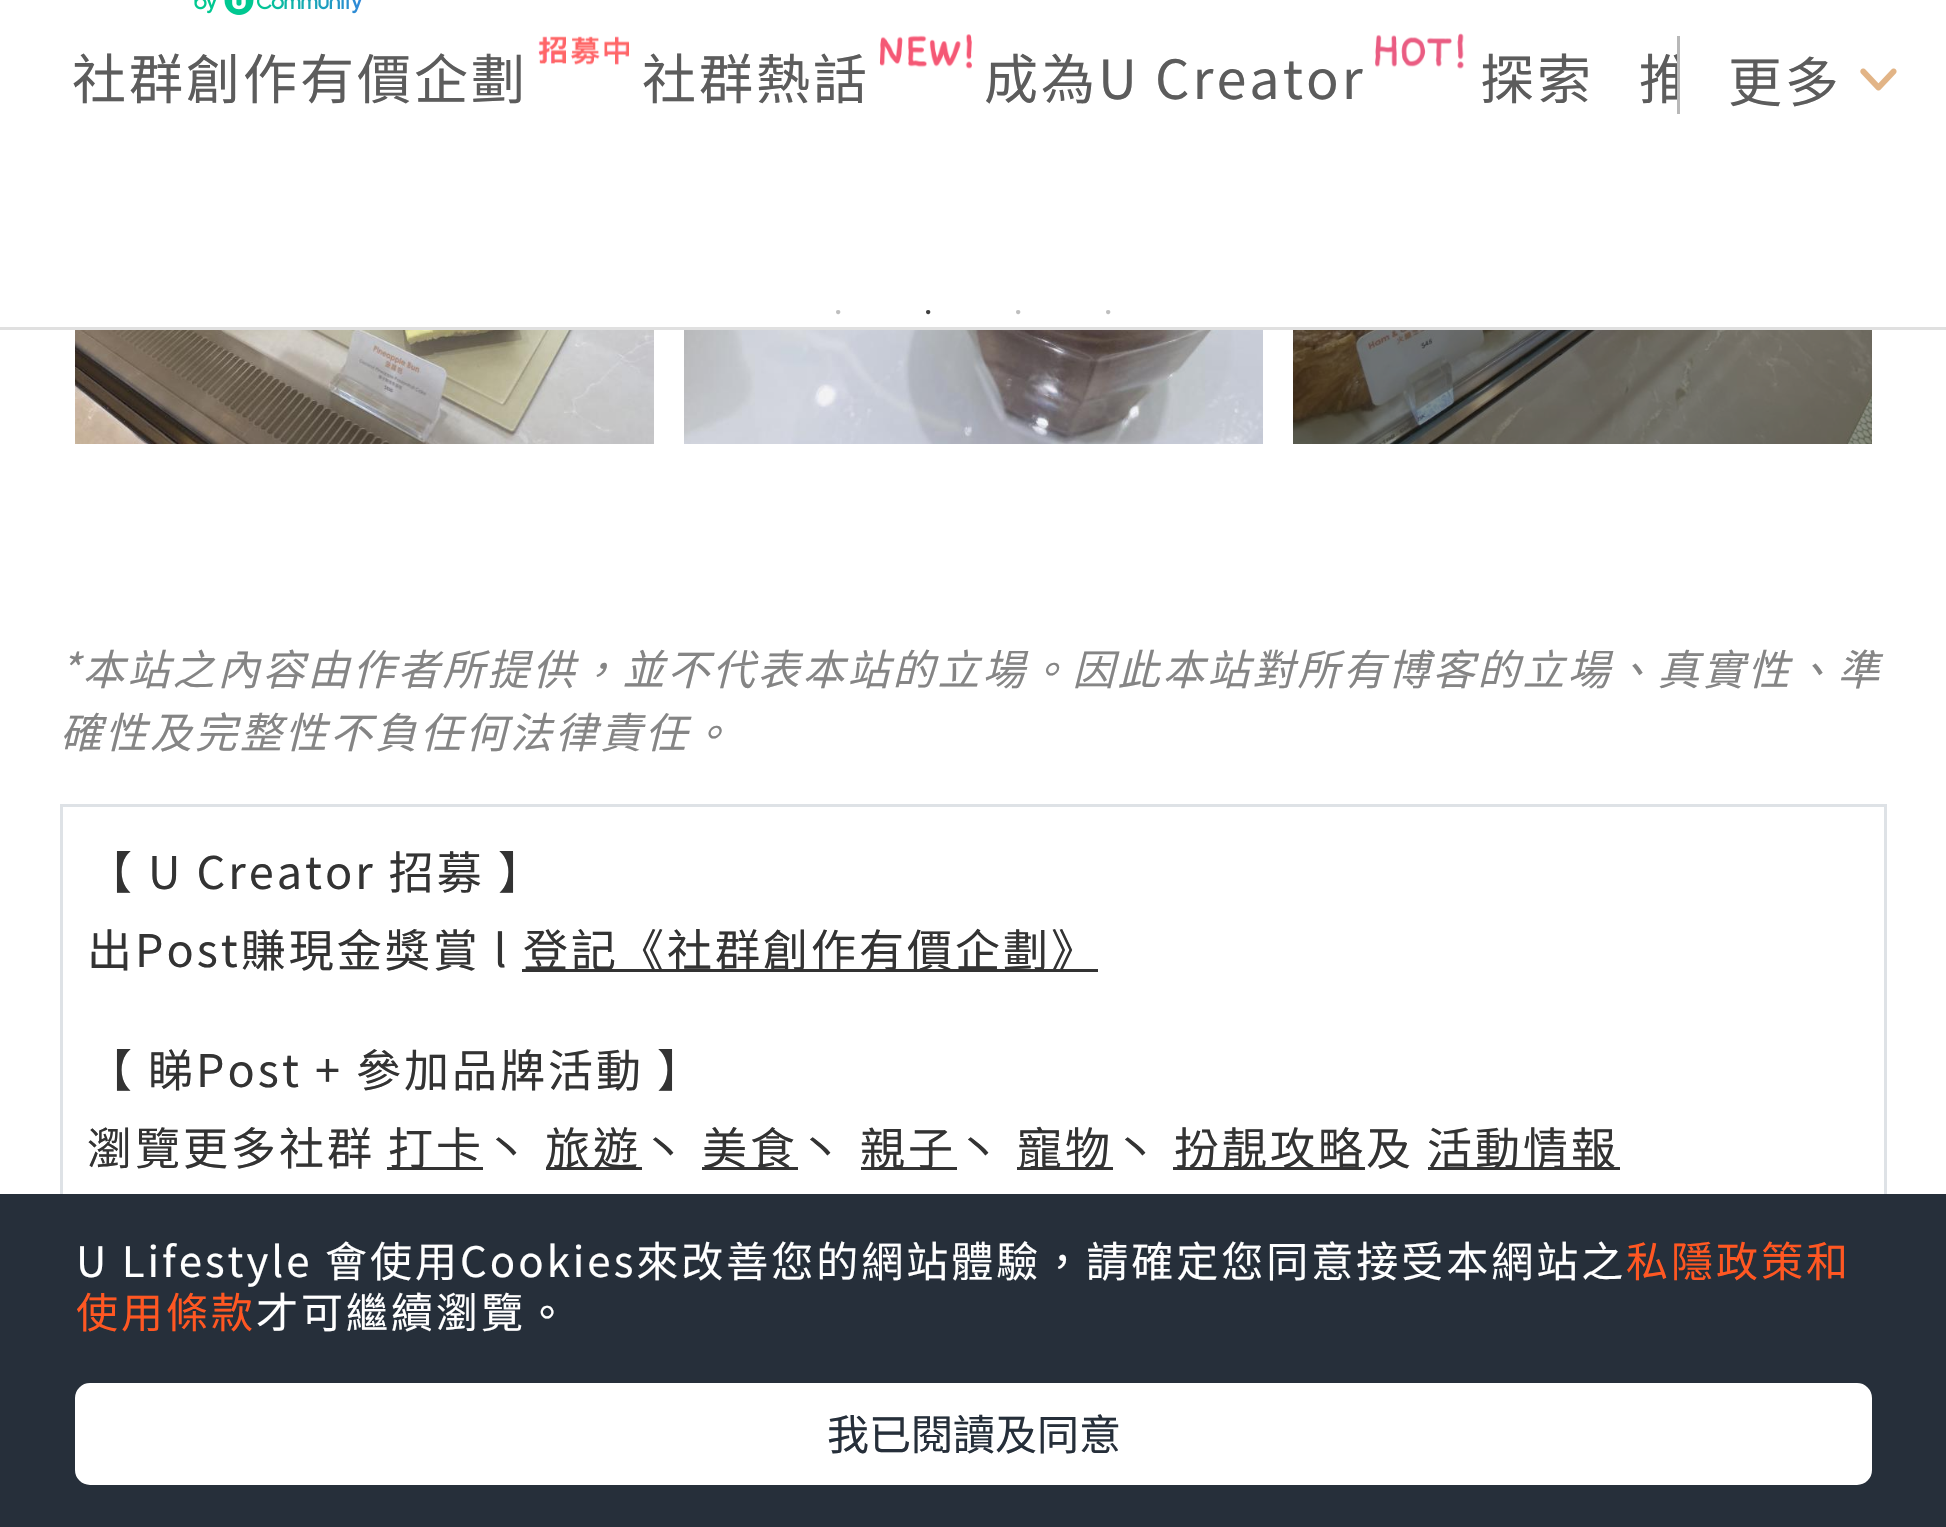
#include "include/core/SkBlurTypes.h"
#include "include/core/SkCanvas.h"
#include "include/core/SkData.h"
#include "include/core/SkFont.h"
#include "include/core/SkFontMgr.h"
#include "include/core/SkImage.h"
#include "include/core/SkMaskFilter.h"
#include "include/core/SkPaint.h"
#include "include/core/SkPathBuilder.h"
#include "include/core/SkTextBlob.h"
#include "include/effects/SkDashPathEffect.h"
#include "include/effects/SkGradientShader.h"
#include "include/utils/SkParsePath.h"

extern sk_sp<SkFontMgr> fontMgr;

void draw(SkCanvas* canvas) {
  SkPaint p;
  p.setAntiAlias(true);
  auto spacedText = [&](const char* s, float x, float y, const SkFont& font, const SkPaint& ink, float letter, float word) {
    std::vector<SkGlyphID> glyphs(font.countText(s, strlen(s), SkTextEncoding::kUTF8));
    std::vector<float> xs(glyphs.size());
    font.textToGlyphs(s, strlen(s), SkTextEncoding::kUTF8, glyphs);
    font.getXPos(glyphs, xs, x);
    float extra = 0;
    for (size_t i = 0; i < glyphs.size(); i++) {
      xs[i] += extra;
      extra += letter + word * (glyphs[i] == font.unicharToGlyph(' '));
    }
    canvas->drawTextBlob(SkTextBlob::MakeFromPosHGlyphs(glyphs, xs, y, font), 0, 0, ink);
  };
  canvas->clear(SK_ColorWHITE);
  canvas->drawImageRect(SkImages::DeferredFromEncodedData(SkData::MakeFromFileName("images/1.png")), SkRect::MakeLTRB(194, 0, 362, 15), SkSamplingOptions());
  p.setColor(SkColorSetRGB(224, 224, 224));
  canvas->drawRect(SkRect::MakeLTRB(0, 327, 1946, 330), p);
  canvas->drawImageRect(SkImages::DeferredFromEncodedData(SkData::MakeFromFileName("images/2.png")), SkRect::MakeLTRB(538, 36, 629, 65), SkSamplingOptions());
  canvas->drawImageRect(SkImages::DeferredFromEncodedData(SkData::MakeFromFileName("images/3.png")), SkRect::MakeLTRB(879, 34, 972, 69), SkSamplingOptions());
  canvas->drawImageRect(SkImages::DeferredFromEncodedData(SkData::MakeFromFileName("images/4.png")), SkRect::MakeLTRB(1375, 33, 1464, 69), SkSamplingOptions());
  canvas->drawImageRect(SkImages::DeferredFromEncodedData(SkData::MakeFromFileName("images/5.png")), SkRect::MakeLTRB(1860, 68, 1897, 91), SkSamplingOptions());
  canvas->drawImageRect(SkImages::DeferredFromEncodedData(SkData::MakeFromFileName("images/6.png")), SkRect::MakeLTRB(75, 330, 654, 444), SkSamplingOptions());
  canvas->drawImageRect(SkImages::DeferredFromEncodedData(SkData::MakeFromFileName("images/7.png")), SkRect::MakeLTRB(684, 330, 1263, 444), SkSamplingOptions());
  canvas->drawImageRect(SkImages::DeferredFromEncodedData(SkData::MakeFromFileName("images/8.png")), SkRect::MakeLTRB(1293, 330, 1872, 444), SkSamplingOptions());
  p.setStyle(SkPaint::kStroke_Style);
  p.setStrokeWidth(3);
  p.setColor(SkColorSetRGB(222, 226, 230));
  canvas->drawRect(SkRect::MakeLTRB(61.5f, 805.5f, 1885.5f, 1372.5f), p);
  p.setStyle(SkPaint::kFill_Style);
  p.setColor(SkColorSetRGB(51, 51, 51));
  canvas->drawRect(SkRect::MakeLTRB(522, 969, 1098, 972), p);
  canvas->drawRect(SkRect::MakeLTRB(387, 1167, 483, 1170), p);
  canvas->drawRect(SkRect::MakeLTRB(546, 1167, 642, 1170), p);
  canvas->drawRect(SkRect::MakeLTRB(702, 1167, 798, 1170), p);
  canvas->drawRect(SkRect::MakeLTRB(861, 1167, 957, 1170), p);
  canvas->drawRect(SkRect::MakeLTRB(1017, 1167, 1113, 1170), p);
  canvas->drawRect(SkRect::MakeLTRB(1173, 1167, 1365, 1170), p);
  canvas->drawRect(SkRect::MakeLTRB(1428, 1167, 1620, 1170), p);
  p.setColor(SkColorSetRGB(38, 47, 58));
  canvas->drawRect(SkRect::MakeLTRB(0, 1194, 1946, 1527), p);
  p.setColor(SK_ColorWHITE);
  canvas->drawRoundRect(SkRect::MakeLTRB(76.5f, 1384.5f, 1870.5f, 1483.5f), 13.5f, 13.5f, p);
  p.setStyle(SkPaint::kStroke_Style);
  canvas->drawRoundRect(SkRect::MakeLTRB(76.5f, 1384.5f, 1870.5f, 1483.5f), 13.5f, 13.5f, p);
  SkFont font1(fontMgr->matchFamilyStyle("Noto Sans TC", SkFontStyle::Normal()), 54);
  font1.setSubpixel(true);
  p.setStyle(SkPaint::kFill_Style);
  p.setColor(SkColorSetRGB(92, 92, 92));
  spacedText("社群創作有價企劃", 72, 99, font1, p, 3, 0);
  spacedText("社群熱話", 642, 99, font1, p, 3, 0);
  spacedText("成為U Creator", 984, 99, font1, p, 3, 0);
  spacedText("探索", 1480, 99, font1, p, 3, 0);
  spacedText("推", 1639, 99, font1, p, 3, 0);
  p.setColor(SK_ColorWHITE);
  canvas->drawRect(SkRect::MakeLTRB(1680, 59, 1691, 100), p);
  p.setColor(SkColorSetRGB(184, 184, 184));
  canvas->drawRect(SkRect::MakeLTRB(1677, 36, 1680, 114), p);
  p.setColor(SkColorSetRGB(92, 92, 92));
  spacedText("更多", 1728, 102, font1, p, 3, 0);
  SkFont font2(fontMgr->matchFamilyStyle("Liberation Serif", SkFontStyle::Normal()), 18);
  font2.setSubpixel(true);
  p.setColor(SkColorSetRGB(191, 191, 191));
  canvas->drawString("•", 835, 318, font2, p);
  p.setColor(SkColorSetRGB(64, 64, 64));
  canvas->drawString("•", 925, 318, font2, p);
  p.setColor(SkColorSetRGB(191, 191, 191));
  canvas->drawString("•", 1015, 318, font2, p);
  canvas->drawString("•", 1105, 318, font2, p);
  SkFont font3(fontMgr->matchFamilyStyle("Noto Sans TC", SkFontStyle::Italic()), 42);
  font3.setSubpixel(true);
  p.setColor(SkColorSetRGB(133, 133, 133));
  spacedText("*本站之內容由作者所提供，並不代表本站的立場。因此本站對所有博客的立場、真實性、準", 60, 685, font3, p, 3, 0);
  spacedText("確性及完整性不負任何法律責任。", 60, 748, font3, p, 3, 0);
  SkFont font4(fontMgr->matchFamilyStyle("Noto Sans TC", SkFontStyle::Normal()), 45);
  font4.setSubpixel(true);
  p.setColor(SkColorSetRGB(51, 51, 51));
  spacedText("【 U Creator 招募 】", 87, 889, font4, p, 3, 0);
  spacedText("出Post賺現金獎賞 l", 87, 967, font4, p, 3, 0);
  spacedText("登記《社群創作有價企劃》", 523, 967, font4, p, 3, 0);
  spacedText("【 睇Post + 參加品牌活動 】", 87, 1087, font4, p, 3, 0);
  spacedText("瀏覽更多社群", 87, 1165, font4, p, 3, 0);
  spacedText("打卡丶", 388, 1165, font4, p, 3, 0);
  spacedText("旅遊丶", 545, 1165, font4, p, 3, 0);
  spacedText("美食丶", 702, 1165, font4, p, 3, 0);
  spacedText("親子丶", 860, 1165, font4, p, 3, 0);
  spacedText("寵物丶", 1017, 1165, font4, p, 3, 0);
  spacedText("扮靚攻略及", 1174, 1165, font4, p, 3, 0);
  spacedText("活動情報", 1427, 1165, font4, p, 3, 0);
  SkFont font5(fontMgr->matchFamilyStyle("Noto Sans TC", SkFontStyle::Normal()), 42);
  font5.setSubpixel(true);
  p.setColor(SK_ColorWHITE);
  spacedText("U Lifestyle 會使用Cookies來改善您的網站體驗，請確定您同意接受本網站之", 76, 1277, font5, p, 3, 0);
  p.setColor(SkColorSetRGB(255, 87, 34));
  spacedText("私隱政策和", 1626, 1277, font5, p, 3, 0);
  spacedText("使用條款", 76, 1328, font5, p, 3, 0);
  p.setColor(SK_ColorWHITE);
  spacedText("才可繼續瀏覽。", 256, 1328, font5, p, 3, 0);
  p.setColor(SkColorSetRGB(38, 47, 58));
  canvas->drawString("我已閱讀及同意", 827, 1450, font5, p);
}
